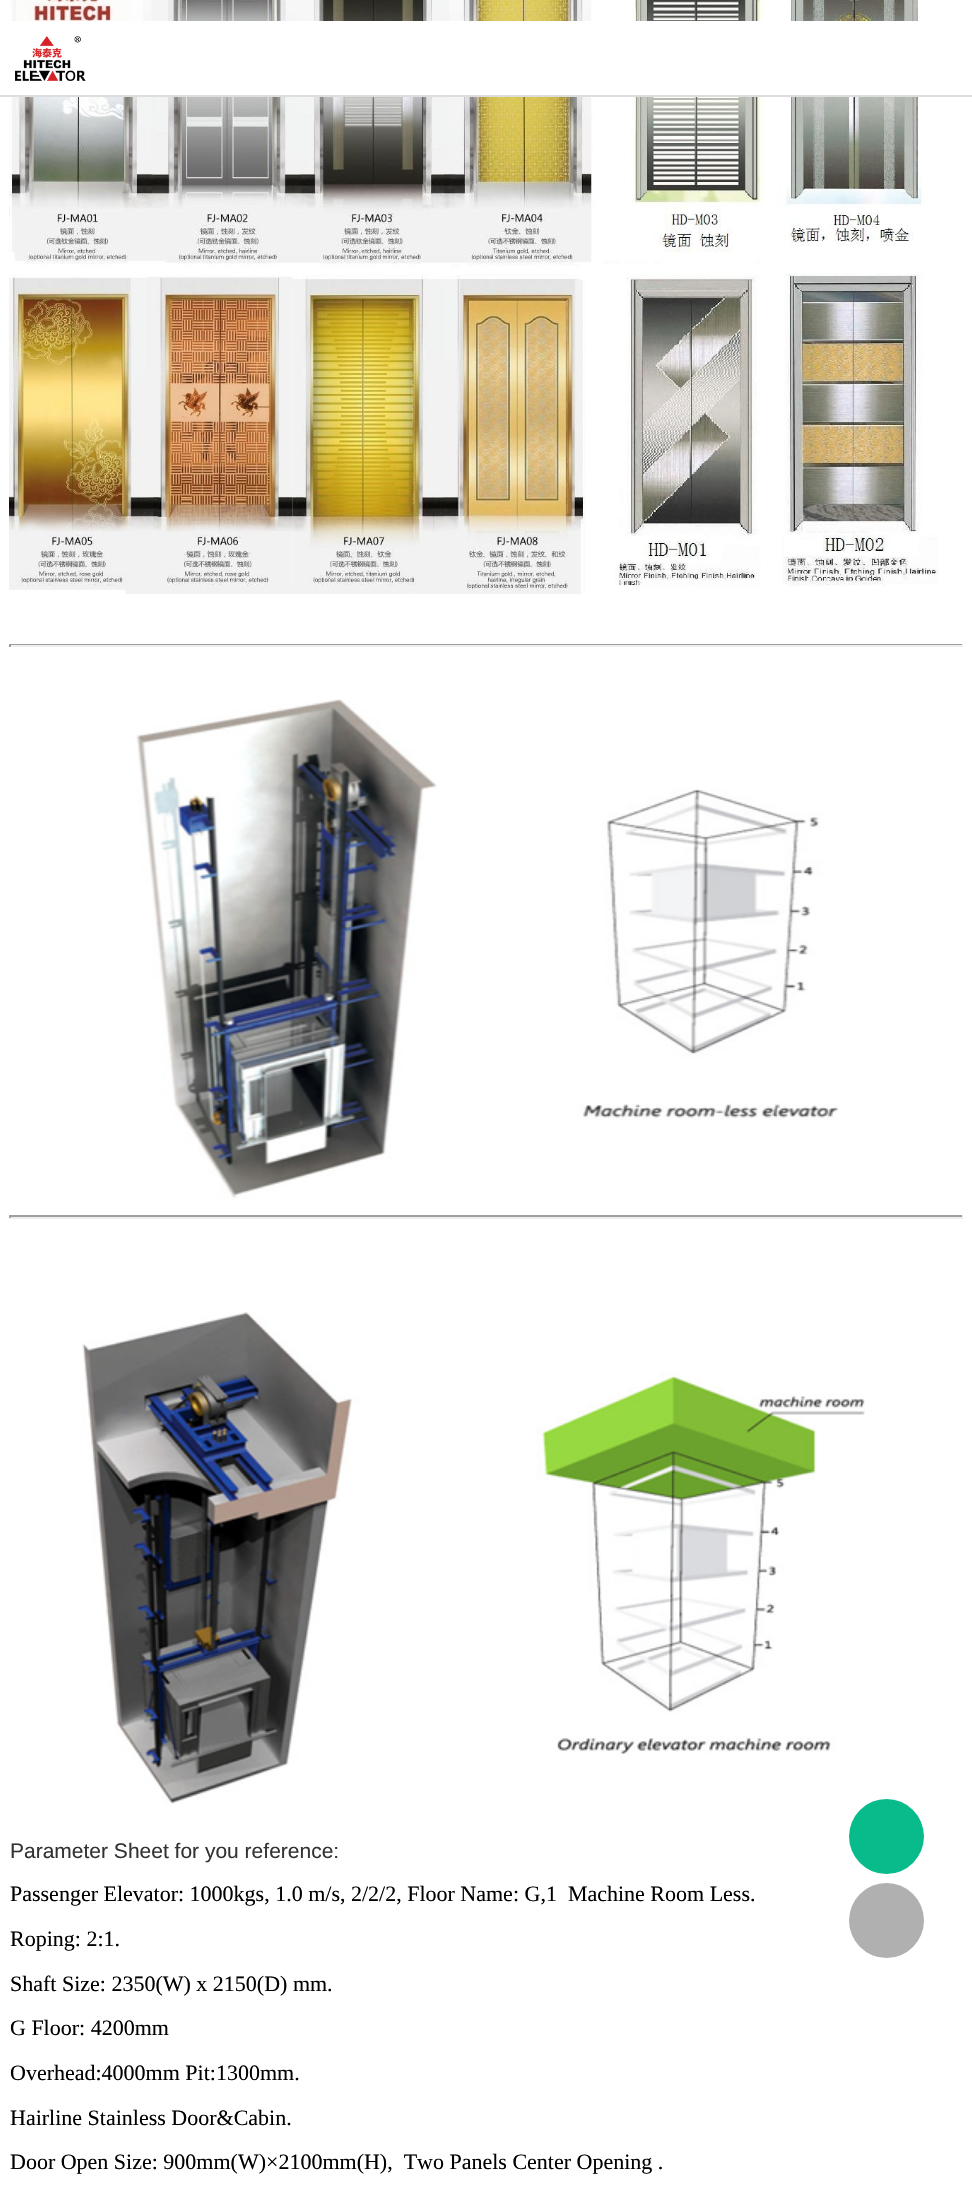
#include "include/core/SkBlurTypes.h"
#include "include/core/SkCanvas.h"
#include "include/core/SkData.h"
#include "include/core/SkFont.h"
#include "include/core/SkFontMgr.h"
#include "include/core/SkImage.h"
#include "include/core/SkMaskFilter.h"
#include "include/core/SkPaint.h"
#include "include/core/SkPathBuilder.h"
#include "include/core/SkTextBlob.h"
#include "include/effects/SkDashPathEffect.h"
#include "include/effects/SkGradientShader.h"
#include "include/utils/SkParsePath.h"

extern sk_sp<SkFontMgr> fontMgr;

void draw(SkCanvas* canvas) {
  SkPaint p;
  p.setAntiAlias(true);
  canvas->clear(SK_ColorWHITE);
  canvas->drawImageRect(SkImages::DeferredFromEncodedData(SkData::MakeFromFileName("images/2.png")), SkRect::MakeLTRB(9, 0, 939, 594), SkSamplingOptions());
  p.setColor(SK_ColorWHITE);
  canvas->drawRect(SkRect::MakeLTRB(11, 21, 920, 95), p);
  p.setColor(SkColorSetRGB(221, 221, 221));
  canvas->drawRect(SkRect::MakeLTRB(0, 95, 972, 97), p);
  canvas->drawImageRect(SkImages::DeferredFromEncodedData(SkData::MakeFromFileName("images/1.png")), SkRect::MakeLTRB(15, 36, 86, 81), SkSamplingOptions());
  p.setColor(SkColorSetRGB(159, 159, 159));
  canvas->drawRect(SkRect::MakeLTRB(9, 644, 963, 645), p);
  p.setColor(SkColorSetRGB(238, 238, 238));
  canvas->drawRect(SkRect::MakeLTRB(962, 644, 963, 647), p);
  canvas->drawRect(SkRect::MakeLTRB(9, 645, 963, 647), p);
  p.setColor(SkColorSetRGB(159, 159, 159));
  canvas->drawRect(SkRect::MakeLTRB(9, 644, 11, 647), p);
  canvas->drawImageRect(SkImages::DeferredFromEncodedData(SkData::MakeFromFileName("images/3.png")), SkRect::MakeLTRB(136, 699, 839, 1199), SkSamplingOptions());
  canvas->drawRect(SkRect::MakeLTRB(9, 1215, 963, 1217), p);
  p.setColor(SkColorSetRGB(238, 238, 238));
  canvas->drawRect(SkRect::MakeLTRB(962, 1215, 963, 1218), p);
  canvas->drawRect(SkRect::MakeLTRB(9, 1217, 963, 1219), p);
  p.setColor(SkColorSetRGB(159, 159, 159));
  canvas->drawRect(SkRect::MakeLTRB(9, 1215, 11, 1218), p);
  canvas->drawImageRect(SkImages::DeferredFromEncodedData(SkData::MakeFromFileName("images/4.png")), SkRect::MakeLTRB(82, 1312, 865, 1804), SkSamplingOptions());
  p.setColor(SkColorSetRGB(7, 187, 138));
  canvas->drawCircle(886.5f, 1836.5f, 37.5f, p);
  p.setColor(SkColorSetRGB(176, 176, 176));
  canvas->drawCircle(886.5f, 1920.5f, 37.5f, p);
  SkFont font1(fontMgr->matchFamilyStyle("Liberation Sans", SkFontStyle::Normal()), 21);
  font1.setSubpixel(true);
  p.setColor(SkColorSetRGB(51, 51, 51));
  canvas->drawString("Parameter Sheet for you reference:", 10, 1858, font1, p);
  SkFont font2(fontMgr->matchFamilyStyle("Liberation Serif", SkFontStyle::Normal()), 22);
  font2.setSubpixel(true);
  p.setColor(SK_ColorBLACK);
  canvas->drawString("Passenger Elevator: 1000kgs, 1.0 m/s, 2/2/2, Floor Name: G,1  Machine Room Less.", 10, 1901, font2, p);
  canvas->drawString("Roping: 2:1.", 10, 1946, font2, p);
  canvas->drawString("Shaft Size: 2350(W) x 2150(D) mm.", 10, 1991, font2, p);
  canvas->drawString("G Floor: 4200mm", 10, 2035, font2, p);
  canvas->drawString("Overhead:4000mm Pit:1300mm.", 10, 2080, font2, p);
  canvas->drawString("Hairline Stainless Door&Cabin.", 10, 2125, font2, p);
  canvas->drawString("Door Open Size: 900mm(W)×2100mm(H),  Two Panels Center Opening .", 10, 2169, font2, p);
}
